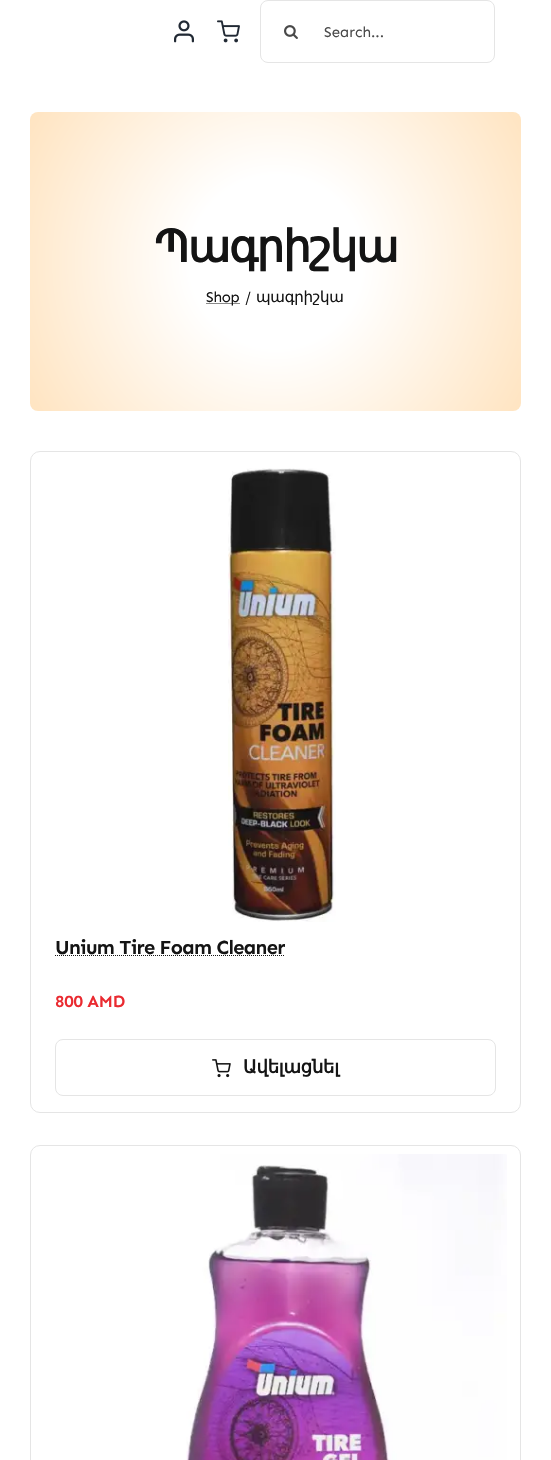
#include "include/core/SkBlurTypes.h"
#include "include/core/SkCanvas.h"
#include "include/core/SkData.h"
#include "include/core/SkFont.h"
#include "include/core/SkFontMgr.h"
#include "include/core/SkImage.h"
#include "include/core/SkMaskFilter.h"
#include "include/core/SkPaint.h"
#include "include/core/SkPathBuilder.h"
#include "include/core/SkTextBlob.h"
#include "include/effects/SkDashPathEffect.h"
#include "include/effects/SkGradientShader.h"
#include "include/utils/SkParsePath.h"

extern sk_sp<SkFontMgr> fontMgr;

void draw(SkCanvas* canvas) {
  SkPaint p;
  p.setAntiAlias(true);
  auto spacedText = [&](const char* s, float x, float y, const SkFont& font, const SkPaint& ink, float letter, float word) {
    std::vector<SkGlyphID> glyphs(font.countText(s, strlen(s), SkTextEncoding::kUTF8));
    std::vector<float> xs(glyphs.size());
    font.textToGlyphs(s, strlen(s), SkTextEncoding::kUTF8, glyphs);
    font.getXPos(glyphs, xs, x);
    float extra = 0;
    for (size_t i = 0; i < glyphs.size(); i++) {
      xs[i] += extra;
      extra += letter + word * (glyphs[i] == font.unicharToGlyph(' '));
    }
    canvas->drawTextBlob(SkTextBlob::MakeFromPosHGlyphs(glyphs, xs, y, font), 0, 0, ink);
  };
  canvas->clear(SK_ColorWHITE);
  canvas->drawImageRect(SkImages::DeferredFromEncodedData(SkData::MakeFromFileName("images/1.png")), SkRect::MakeLTRB(174, 20, 194, 43), SkSamplingOptions());
  canvas->drawImageRect(SkImages::DeferredFromEncodedData(SkData::MakeFromFileName("images/2.png")), SkRect::MakeLTRB(217, 20, 240, 43), SkSamplingOptions());
  p.setStyle(SkPaint::kStroke_Style);
  p.setStrokeWidth(1);
  p.setColor(SkColorSetRGB(229, 229, 229));
  canvas->drawRoundRect(SkRect::MakeLTRB(260.5f, 0.5f, 494.5f, 62.5f), 7.5f, 7.5f, p);
  canvas->drawImageRect(SkImages::DeferredFromEncodedData(SkData::MakeFromFileName("images/3.png")), SkRect::MakeLTRB(284, 25, 298, 39), SkSamplingOptions());
  p.setStyle(SkPaint::kFill_Style);
  {
    const SkColor colors[] = {SK_ColorWHITE, SkColorSetRGB(255, 228, 193)};
    const float stops[] = {0.3f, 1};
    p.setShader(SkGradientShader::MakeRadial({276, 262}, 287, colors, stops, 2, SkTileMode::kClamp));
    p.setAlpha(255);
  }
  canvas->drawRoundRect(SkRect::MakeLTRB(30, 112, 521, 411), 8, 8, p);
  p.setStyle(SkPaint::kStroke_Style);
  p.setShader(nullptr);
  p.setColor(SkColorSetRGB(20, 20, 20));
  p.setPathEffect(SkDashPathEffect::Make({{1, 1}}, 0));
  canvas->drawPath(SkPathBuilder().moveTo(206.5f, 303.5f).lineTo(240.5f, 303.5f).detach(), p);
  p.setPathEffect(nullptr);
  p.setColor(SkColorSetRGB(229, 229, 229));
  canvas->drawRoundRect(SkRect::MakeLTRB(30.5f, 451.5f, 520.5f, 1112.5f), 9.5f, 9.5f, p);
  canvas->drawImageRect(SkImages::DeferredFromEncodedData(SkData::MakeFromFileName("images/4.png")), SkRect::MakeLTRB(228, 468, 336, 922), SkSamplingOptions());
  p.setColor(SkColorSetRGB(20, 20, 20));
  p.setPathEffect(SkDashPathEffect::Make({{1, 1}}, 0));
  canvas->drawPath(SkPathBuilder().moveTo(55, 955.5f).lineTo(284.5f, 955.5f).detach(), p);
  p.setPathEffect(nullptr);
  p.setColor(SkColorSetRGB(229, 229, 229));
  canvas->drawRoundRect(SkRect::MakeLTRB(55.5f, 1039.5f, 495.5f, 1095.5f), 7.5f, 7.5f, p);
  canvas->drawImageRect(SkImages::DeferredFromEncodedData(SkData::MakeFromFileName("images/5.png")), SkRect::MakeLTRB(212, 1059, 231, 1078), SkSamplingOptions());
  canvas->drawRoundRect(SkRect::MakeLTRB(30.5f, 1145.5f, 520.5f, 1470.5f), 9.5f, 9.5f, p);
  canvas->drawImageRect(SkImages::DeferredFromEncodedData(SkData::MakeFromFileName("images/6.png")), SkRect::MakeLTRB(186, 1154, 507, 1460), SkSamplingOptions());
  SkFont font1(fontMgr->matchFamilyStyle("Sen", SkFontStyle::Normal()), 15);
  font1.setSubpixel(true);
  p.setStyle(SkPaint::kFill_Style);
  p.setColor(SkColorSetRGB(73, 73, 73));
  canvas->drawString("Search...", 324, 37, font1, p);
  SkFont font2(fontMgr->matchFamilyStyle("DejaVu Sans", SkFontStyle::Bold()), 44);
  font2.setSubpixel(true);
  p.setColor(SkColorSetRGB(20, 20, 20));
  spacedText("Պագրիշկա", 154, 262, font2, p, -1.5f, 0);
  spacedText("Shop", 206, 302, font1, p, -0.25f, 0);
  spacedText("/", 245, 302, font1, p, -0.25f, 0);
  SkFont font3(fontMgr->matchFamilyStyle("DejaVu Sans", SkFontStyle::Normal()), 15);
  font3.setSubpixel(true);
  spacedText("պագրիշկա", 256, 302, font3, p, -0.25f, 0);
  SkFont font4(fontMgr->matchFamilyStyle("Sen", SkFontStyle::Bold()), 20);
  font4.setSubpixel(true);
  spacedText("Unium Tire Foam Cleaner", 55, 954, font4, p, -0.7f, 0);
  SkFont font5(fontMgr->matchFamilyStyle("Sen", SkFontStyle(600, SkFontStyle::kNormal_Width, SkFontStyle::kUpright_Slant)), 17);
  font5.setSubpixel(true);
  p.setColor(SkColorSetRGB(234, 42, 48));
  spacedText("800 AMD", 55, 1007, font5, p, -0.25f, 0);
  SkFont font6(fontMgr->matchFamilyStyle("DejaVu Sans", SkFontStyle::Bold()), 18);
  font6.setSubpixel(true);
  p.setColor(SkColorSetRGB(20, 20, 20));
  spacedText("Ավելացնել", 243, 1073, font6, p, -0.25f, 0);
}
